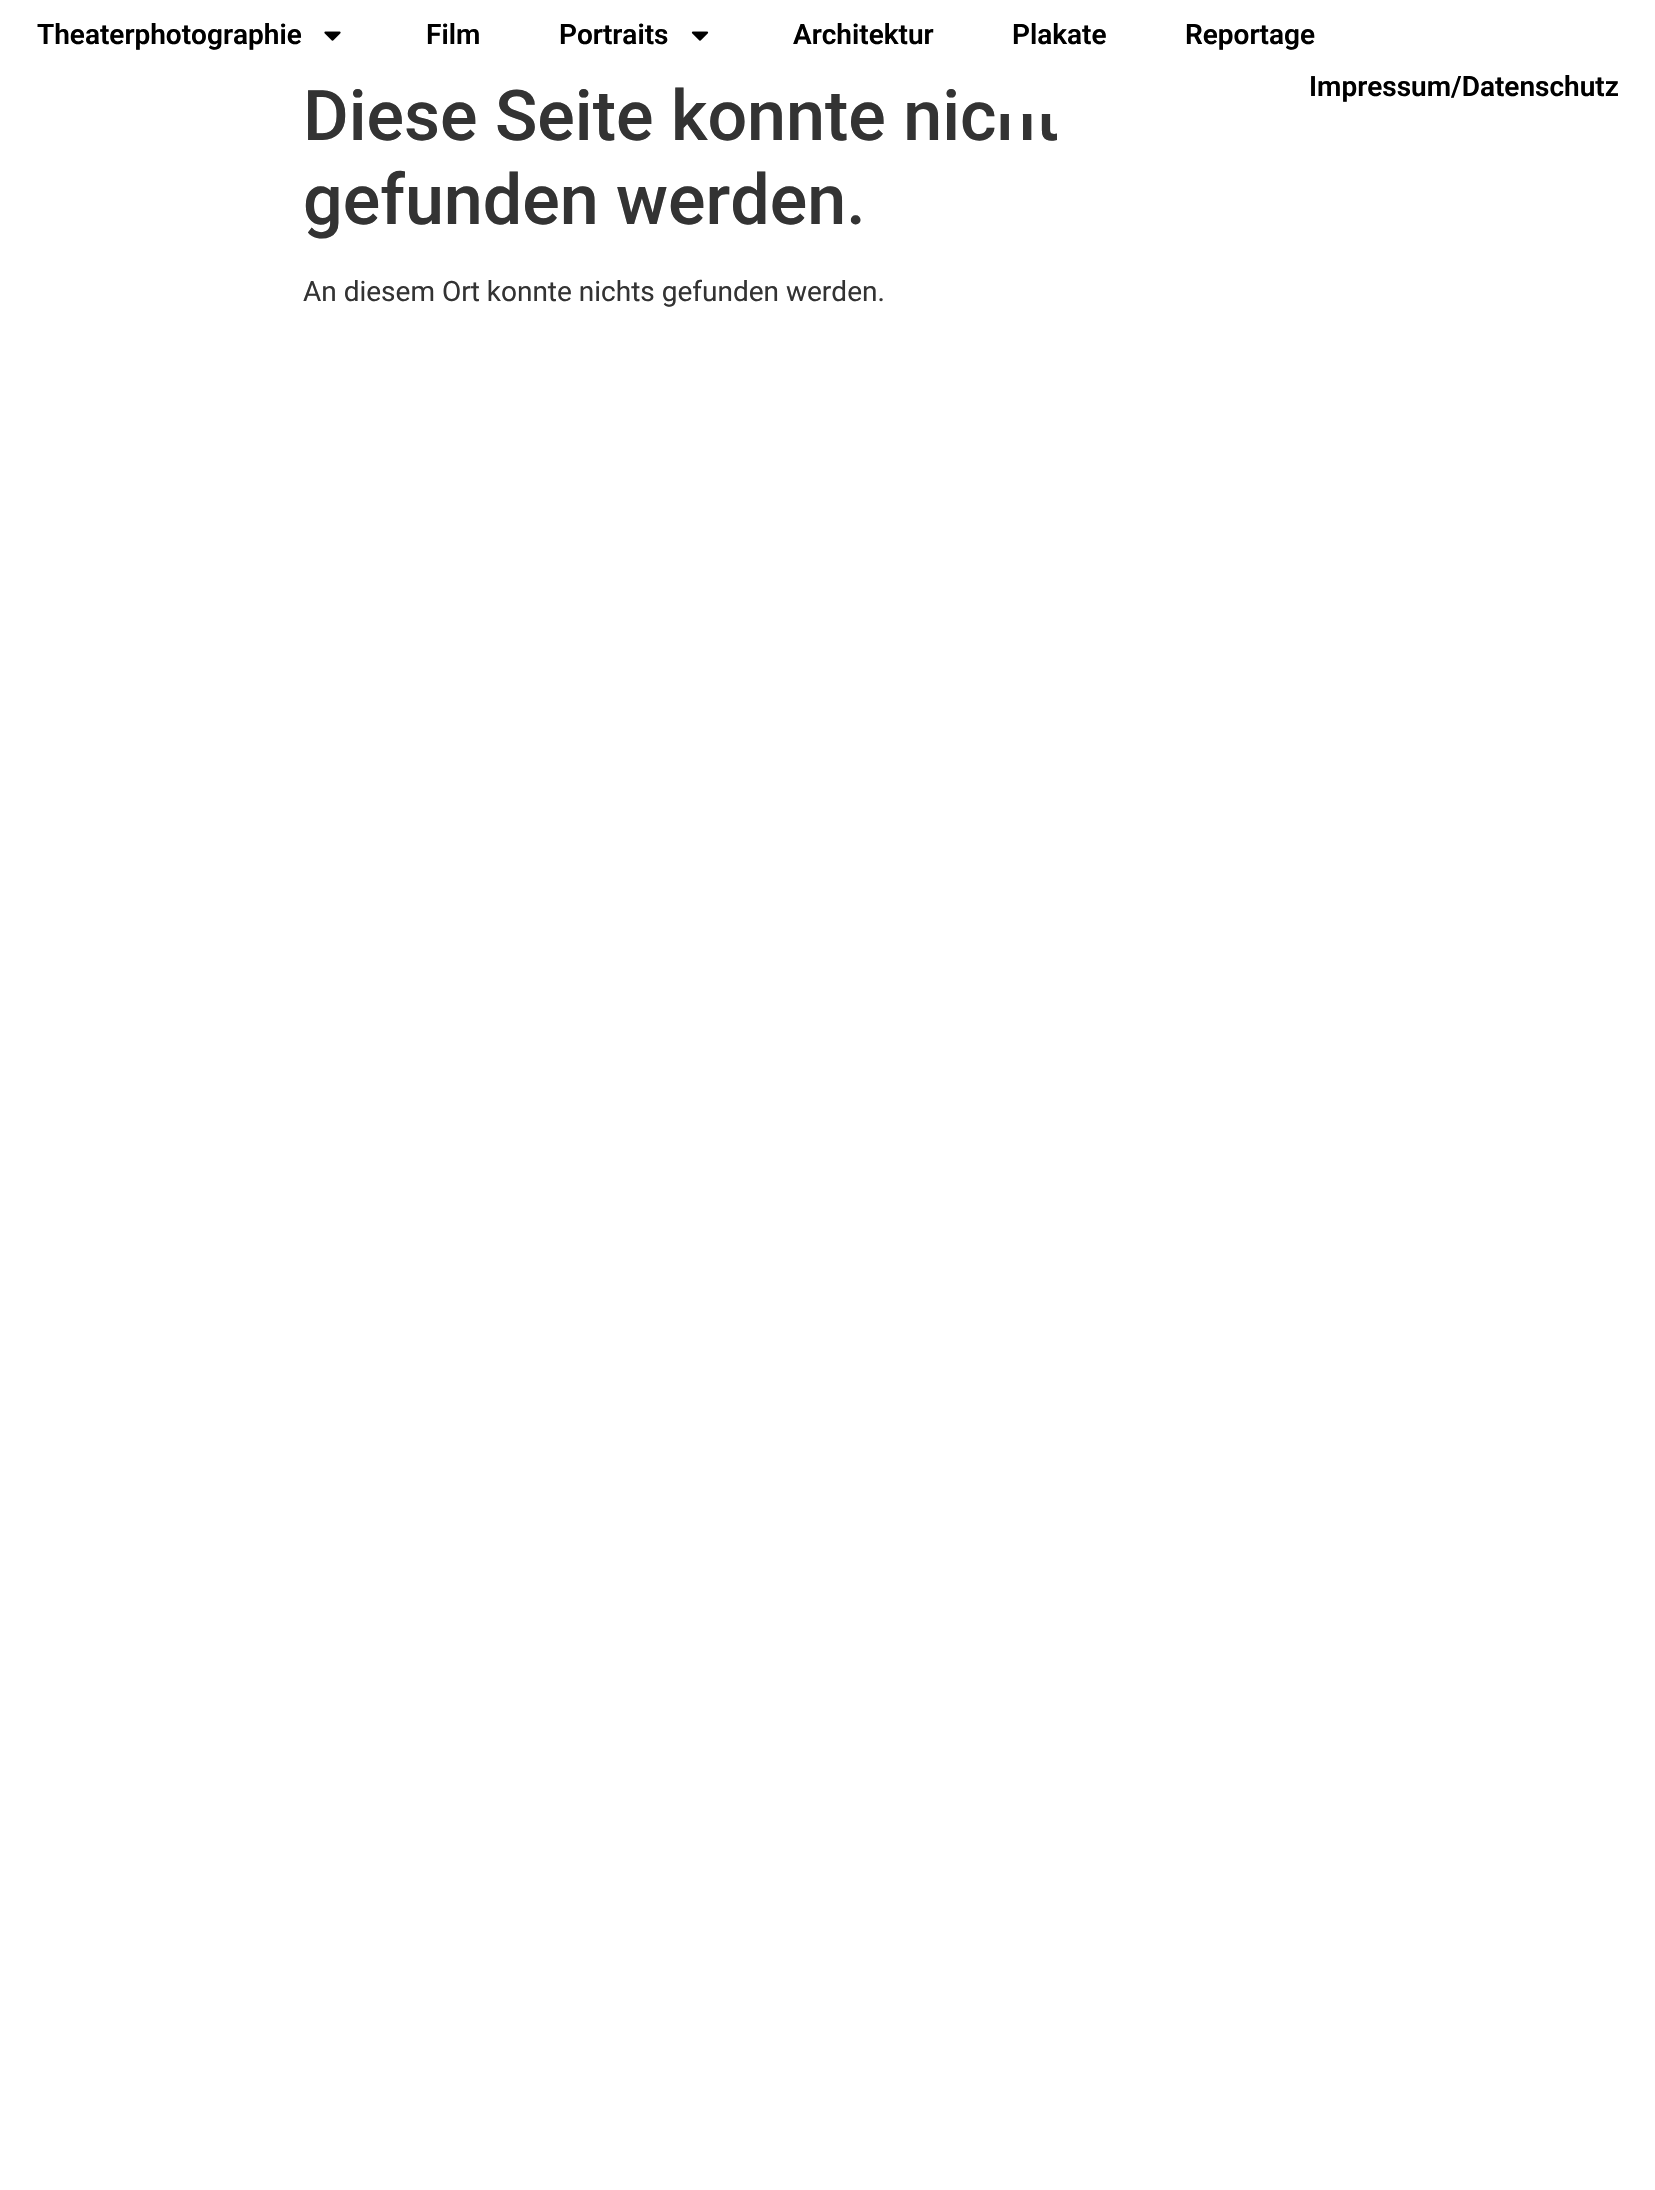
#include "include/core/SkBlurTypes.h"
#include "include/core/SkCanvas.h"
#include "include/core/SkData.h"
#include "include/core/SkFont.h"
#include "include/core/SkFontMgr.h"
#include "include/core/SkImage.h"
#include "include/core/SkMaskFilter.h"
#include "include/core/SkPaint.h"
#include "include/core/SkPathBuilder.h"
#include "include/core/SkTextBlob.h"
#include "include/effects/SkDashPathEffect.h"
#include "include/effects/SkGradientShader.h"
#include "include/utils/SkParsePath.h"

extern sk_sp<SkFontMgr> fontMgr;

void draw(SkCanvas* canvas) {
  SkPaint p;
  p.setAntiAlias(true);
  canvas->clear(SK_ColorWHITE);
  canvas->drawImageRect(SkImages::DeferredFromEncodedData(SkData::MakeFromFileName("images/1.png")), SkRect::MakeLTRB(324, 31, 341, 41), SkSamplingOptions());
  canvas->drawImageRect(SkImages::DeferredFromEncodedData(SkData::MakeFromFileName("images/2.png")), SkRect::MakeLTRB(691, 31, 709, 41), SkSamplingOptions());
  SkFont font1(fontMgr->matchFamilyStyle("Roboto", SkFontStyle(600, SkFontStyle::kNormal_Width, SkFontStyle::kUpright_Slant)), 28);
  font1.setSubpixel(true);
  p.setColor(SK_ColorBLACK);
  canvas->drawString("Theaterphotographie", 37, 44, font1, p);
  canvas->drawString("Film", 426, 44, font1, p);
  canvas->drawString("Portraits", 559, 44, font1, p);
  canvas->drawString("Architektur", 793, 44, font1, p);
  canvas->drawString("Plakate", 1012, 44, font1, p);
  canvas->drawString("Reportage", 1185, 44, font1, p);
  SkFont font2(fontMgr->matchFamilyStyle("Roboto", SkFontStyle(500, SkFontStyle::kNormal_Width, SkFontStyle::kUpright_Slant)), 70);
  font2.setSubpixel(true);
  p.setColor(SkColorSetRGB(51, 51, 51));
  canvas->drawString("Diese Seite konnte nicht", 303, 140, font2, p);
  canvas->drawString("gefunden werden.", 303, 224, font2, p);
  SkFont font3(fontMgr->matchFamilyStyle("Roboto", SkFontStyle::Normal()), 28);
  font3.setSubpixel(true);
  canvas->drawString("An diesem Ort konnte nichts gefunden werden.", 303, 301, font3, p);
  p.setColor(SK_ColorWHITE);
  canvas->drawRect(SkRect::MakeLTRB(1000, 87, 1057, 114), p);
  p.setColor(SK_ColorBLACK);
  canvas->drawString("Impressum/Datenschutz", 1309, 96, font1, p);
}
